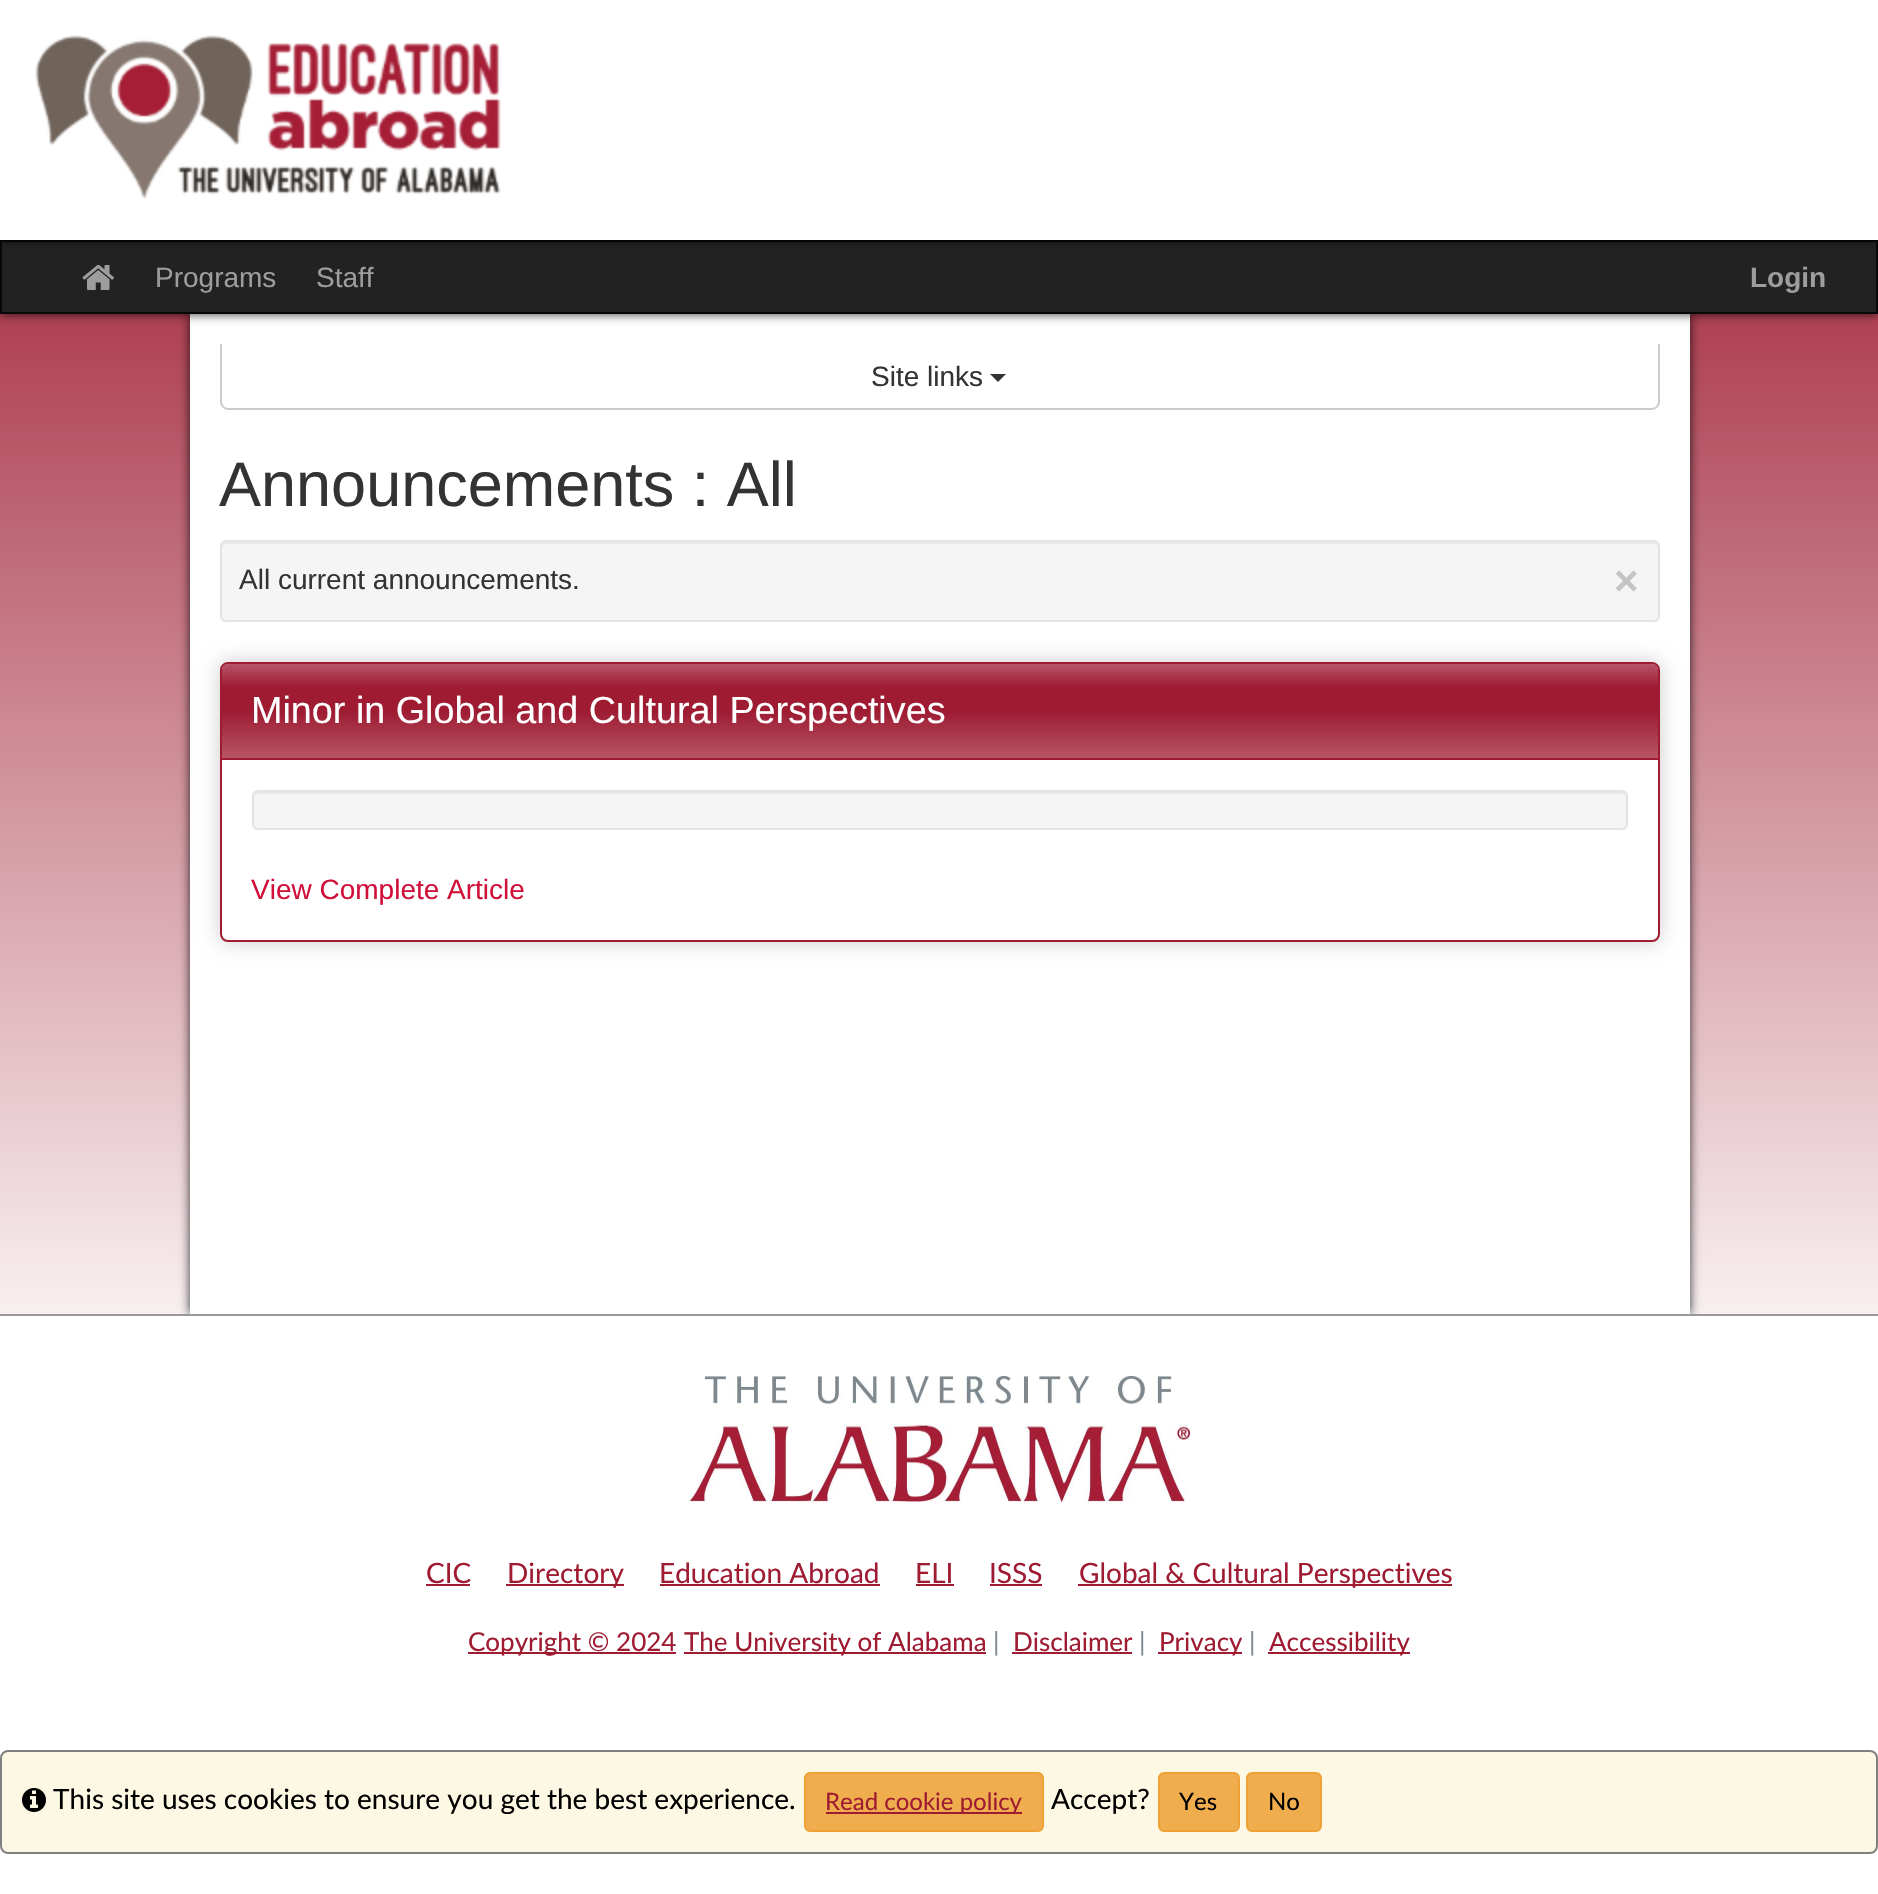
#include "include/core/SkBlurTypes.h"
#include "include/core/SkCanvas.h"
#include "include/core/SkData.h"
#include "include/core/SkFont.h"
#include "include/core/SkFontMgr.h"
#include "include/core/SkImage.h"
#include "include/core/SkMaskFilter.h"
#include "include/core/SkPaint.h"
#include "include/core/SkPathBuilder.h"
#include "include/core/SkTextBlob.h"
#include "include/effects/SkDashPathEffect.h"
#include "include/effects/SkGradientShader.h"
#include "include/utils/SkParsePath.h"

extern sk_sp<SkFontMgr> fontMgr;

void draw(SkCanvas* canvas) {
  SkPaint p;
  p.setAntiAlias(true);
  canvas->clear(SK_ColorWHITE);
  {
    const SkColor colors[] = {SkColorSetRGB(158, 27, 48), SK_ColorWHITE};
    const float stops[] = {0.05f, 0.74f};
    const SkPoint ends[] = {{939, 0}, {939, 1894}};
    p.setShader(SkGradientShader::MakeLinear(ends, colors, stops, 2, SkTileMode::kClamp));
    p.setAlpha(255);
  }
  canvas->drawRect(SkRect::MakeLTRB(0, 314, 1878, 1387), p);
  p.setShader(nullptr);
  p.setColor(SkColorSetARGB(204, 0, 0, 0));
  p.setMaskFilter(SkMaskFilter::MakeBlur(kNormal_SkBlurStyle, 5));
  canvas->drawRect(SkRect::MakeLTRB(190, 314, 1690, 1314), p);
  p.setMaskFilter(nullptr);
  p.setColor(SK_ColorWHITE);
  canvas->drawRect(SkRect::MakeLTRB(190, 314, 1690, 1314), p);
  p.setColor(SkColorSetARGB(204, 0, 0, 0));
  p.setMaskFilter(SkMaskFilter::MakeBlur(kNormal_SkBlurStyle, 5));
  canvas->drawRect(SkRect::MakeLTRB(0, 240, 1878, 314), p);
  p.setMaskFilter(nullptr);
  p.setColor(SkColorSetRGB(34, 34, 34));
  canvas->drawRect(SkRect::MakeLTRB(1, 241, 1877, 313), p);
  p.setStyle(SkPaint::kStroke_Style);
  p.setStrokeWidth(2);
  p.setColor(SkColorSetRGB(8, 8, 8));
  canvas->drawRect(SkRect::MakeLTRB(1, 241, 1877, 313), p);
  p.setStyle(SkPaint::kFill_Style);
  p.setColor(SkColorSetARGB(204, 0, 0, 0));
  p.setMaskFilter(SkMaskFilter::MakeBlur(kNormal_SkBlurStyle, 5));
  canvas->drawRect(SkRect::MakeLTRB(0, 0, 1878, 240), p);
  p.setMaskFilter(nullptr);
  p.setColor(SK_ColorWHITE);
  canvas->drawRect(SkRect::MakeLTRB(0, 0, 1878, 240), p);
  canvas->drawImageRect(SkImages::DeferredFromEncodedData(SkData::MakeFromFileName("images/1.png")), SkRect::MakeLTRB(35, 35, 501, 199), SkSamplingOptions());
  canvas->drawImageRect(SkImages::DeferredFromEncodedData(SkData::MakeFromFileName("images/2.png")), SkRect::MakeLTRB(82, 265, 114, 290), SkSamplingOptions());
  p.setColor(SkColorSetRGB(204, 204, 204));
  canvas->drawPath(SkPathBuilder(SkPathFillType::kEvenOdd).moveTo(220, 344).lineTo(1660, 344).lineTo(1660, 402).cubicTo(1660, 406, 1656, 410, 1652, 410).lineTo(228, 410).cubicTo(224, 410, 220, 406, 220, 402).close().moveTo(222, 344).lineTo(1658, 344).lineTo(1658, 402).cubicTo(1658, 405, 1655, 408, 1652, 408).lineTo(228, 408).cubicTo(225, 408, 222, 405, 222, 402).close().detach(), p);
  p.setColor(SkColorSetRGB(51, 51, 51));
  canvas->drawPath(SkPathBuilder().moveTo(990, 374).lineTo(1006, 374).lineTo(998, 382).close().detach(), p);
  p.setColor(SkColorSetRGB(245, 245, 245));
  canvas->drawRoundRect(SkRect::MakeLTRB(220, 540, 1660, 622), 6, 6, p);
  p.setColor(SkColorSetRGB(233, 233, 233));
  canvas->drawPath(SkPathBuilder().moveTo(226, 544).lineTo(1654, 544).cubicTo(1656, 544, 1658, 546, 1658, 548).cubicTo(1658, 545, 1658, 542, 1654, 542).lineTo(226, 542).cubicTo(222, 542, 222, 545, 222, 548).cubicTo(222, 546, 224, 544, 226, 544).close().detach(), p);
  p.setStyle(SkPaint::kStroke_Style);
  p.setColor(SkColorSetRGB(227, 227, 227));
  canvas->drawRoundRect(SkRect::MakeLTRB(221, 541, 1659, 621), 5, 5, p);
  p.setStyle(SkPaint::kFill_Style);
  p.setColor(SkColorSetARGB(51, 0, 0, 0));
  p.setMaskFilter(SkMaskFilter::MakeBlur(kNormal_SkBlurStyle, 10));
  canvas->drawRoundRect(SkRect::MakeLTRB(220, 662, 1660, 942), 8, 8, p);
  p.setMaskFilter(nullptr);
  p.setColor(SK_ColorWHITE);
  canvas->drawRoundRect(SkRect::MakeLTRB(221, 663, 1659, 941), 7, 7, p);
  p.setStyle(SkPaint::kStroke_Style);
  p.setColor(SkColorSetRGB(158, 27, 50));
  canvas->drawRoundRect(SkRect::MakeLTRB(221, 663, 1659, 941), 7, 7, p);
  p.setStyle(SkPaint::kFill_Style);
  canvas->drawPath(SkPathBuilder().moveTo(228, 664).lineTo(1652, 664).cubicTo(1655.5f, 664, 1658, 666.5f, 1658, 670).lineTo(1658, 760).lineTo(222, 760).lineTo(222, 670).cubicTo(222, 666.5f, 224.5f, 664, 228, 664).close().detach(), p);
  {
    const SkColor colors[] = {SkColorSetARGB(64, 255, 255, 255), SkColorSetARGB(0, 255, 255, 255), SkColorSetARGB(0, 255, 255, 255), SkColorSetARGB(64, 255, 255, 255)};
    const float stops[] = {0, 0.25f, 0.5f, 1};
    const SkPoint ends[] = {{940, 664}, {940, 758}};
    p.setShader(SkGradientShader::MakeLinear(ends, colors, stops, 4, SkTileMode::kClamp));
    p.setAlpha(255);
  }
  canvas->drawPath(SkPathBuilder().moveTo(228, 664).lineTo(1652, 664).cubicTo(1655.5f, 664, 1658, 666.5f, 1658, 670).lineTo(1658, 758).lineTo(222, 758).lineTo(222, 670).cubicTo(222, 666.5f, 224.5f, 664, 228, 664).close().detach(), p);
  p.setShader(nullptr);
  p.setColor(SkColorSetRGB(245, 245, 245));
  canvas->drawRoundRect(SkRect::MakeLTRB(252, 790, 1628, 830), 6, 6, p);
  p.setColor(SkColorSetRGB(233, 233, 233));
  canvas->drawPath(SkPathBuilder().moveTo(258, 794).lineTo(1622, 794).cubicTo(1624, 794, 1626, 796, 1626, 798).cubicTo(1626, 795, 1626, 792, 1622, 792).lineTo(258, 792).cubicTo(254, 792, 254, 795, 254, 798).cubicTo(254, 796, 256, 794, 258, 794).close().detach(), p);
  p.setStyle(SkPaint::kStroke_Style);
  p.setColor(SkColorSetRGB(227, 227, 227));
  canvas->drawRoundRect(SkRect::MakeLTRB(253, 791, 1627, 829), 5, 5, p);
  p.setStyle(SkPaint::kFill_Style);
  p.setColor(SK_ColorWHITE);
  canvas->drawRect(SkRect::MakeLTRB(0, 1316, 1878, 1387), p);
  p.setColor(SkColorSetRGB(153, 153, 153));
  canvas->drawRect(SkRect::MakeLTRB(0, 1314, 1878, 1316), p);
  canvas->drawImageRect(SkImages::DeferredFromEncodedData(SkData::MakeFromFileName("images/3.png")), SkRect::MakeLTRB(690, 1376, 1190, 1502), SkSamplingOptions());
  p.setColor(SkColorSetRGB(158, 27, 50));
  canvas->drawRect(SkRect::MakeLTRB(426, 1584, 470, 1586), p);
  canvas->drawRect(SkRect::MakeLTRB(506, 1584, 624, 1586), p);
  canvas->drawRect(SkRect::MakeLTRB(660, 1584, 880, 1586), p);
  canvas->drawRect(SkRect::MakeLTRB(916, 1584, 954, 1586), p);
  canvas->drawRect(SkRect::MakeLTRB(990, 1584, 1042, 1586), p);
  canvas->drawRect(SkRect::MakeLTRB(1078, 1584, 1452, 1586), p);
  canvas->drawRect(SkRect::MakeLTRB(468, 1652, 676, 1654), p);
  canvas->drawRect(SkRect::MakeLTRB(684, 1652, 986, 1654), p);
  canvas->drawRect(SkRect::MakeLTRB(1012, 1652, 1132, 1654), p);
  canvas->drawRect(SkRect::MakeLTRB(1158, 1652, 1242, 1654), p);
  canvas->drawRect(SkRect::MakeLTRB(1268, 1652, 1410, 1654), p);
  p.setColor(SkColorSetRGB(252, 248, 227));
  canvas->drawRoundRect(SkRect::MakeLTRB(1, 1751, 1877, 1853), 7, 7, p);
  p.setStyle(SkPaint::kStroke_Style);
  p.setColor(SkColorSetRGB(128, 128, 128));
  canvas->drawRoundRect(SkRect::MakeLTRB(1, 1751, 1877, 1853), 7, 7, p);
  canvas->drawImageRect(SkImages::DeferredFromEncodedData(SkData::MakeFromFileName("images/4.png")), SkRect::MakeLTRB(22, 1788, 46, 1812), SkSamplingOptions());
  p.setStyle(SkPaint::kFill_Style);
  p.setColor(SkColorSetRGB(240, 173, 78));
  canvas->drawRoundRect(SkRect::MakeLTRB(805, 1773, 1043, 1831), 5, 5, p);
  p.setStyle(SkPaint::kStroke_Style);
  p.setColor(SkColorSetRGB(238, 162, 54));
  canvas->drawRoundRect(SkRect::MakeLTRB(805, 1773, 1043, 1831), 5, 5, p);
  p.setStyle(SkPaint::kFill_Style);
  p.setColor(SkColorSetRGB(158, 27, 50));
  canvas->drawRect(SkRect::MakeLTRB(826, 1812, 1022, 1814), p);
  p.setColor(SkColorSetRGB(240, 173, 78));
  canvas->drawRoundRect(SkRect::MakeLTRB(1159, 1773, 1239, 1831), 5, 5, p);
  p.setStyle(SkPaint::kStroke_Style);
  p.setColor(SkColorSetRGB(238, 162, 54));
  canvas->drawRoundRect(SkRect::MakeLTRB(1159, 1773, 1239, 1831), 5, 5, p);
  p.setStyle(SkPaint::kFill_Style);
  p.setColor(SkColorSetRGB(240, 173, 78));
  canvas->drawRoundRect(SkRect::MakeLTRB(1247, 1773, 1321, 1831), 5, 5, p);
  p.setStyle(SkPaint::kStroke_Style);
  p.setColor(SkColorSetRGB(238, 162, 54));
  canvas->drawRoundRect(SkRect::MakeLTRB(1247, 1773, 1321, 1831), 5, 5, p);
  SkFont font1(fontMgr->matchFamilyStyle("Liberation Sans", SkFontStyle::Normal()), 28);
  font1.setSubpixel(true);
  p.setStyle(SkPaint::kFill_Style);
  p.setColor(SkColorSetRGB(157, 157, 157));
  canvas->drawString("Programs", 155, 287, font1, p);
  canvas->drawString("Staff", 316, 287, font1, p);
  SkFont font2(fontMgr->matchFamilyStyle("Liberation Sans", SkFontStyle::Bold()), 28);
  font2.setSubpixel(true);
  canvas->drawString("Login", 1750, 287, font2, p);
  p.setColor(SkColorSetRGB(51, 51, 51));
  canvas->drawString("Site links", 871, 386, font1, p);
  SkFont font3(fontMgr->matchFamilyStyle("Liberation Sans", SkFontStyle::Normal()), 63);
  font3.setSubpixel(true);
  canvas->drawString("Announcements : All", 219, 506, font3, p);
  canvas->drawString("All current announcements.", 239, 589, font1, p);
  SkFont font4(fontMgr->matchFamilyStyle("Liberation Sans", SkFontStyle::Bold()), 42);
  font4.setSubpixel(true);
  p.setColor(SkColorSetRGB(196, 196, 196));
  canvas->drawString("×", 1614, 595, font4, p);
  SkFont font5(fontMgr->matchFamilyStyle("Liberation Sans", SkFontStyle::Normal()), 37.75f);
  font5.setSubpixel(true);
  p.setColor(SK_ColorWHITE);
  canvas->drawString("Minor in Global and Cultural Perspectives", 251, 723, font5, p);
  p.setColor(SkColorSetRGB(208, 16, 58));
  canvas->drawString("View Complete Article", 251, 899, font1, p);
  SkFont font6(fontMgr->matchFamilyStyle("Lato", SkFontStyle::Normal()), 28);
  font6.setSubpixel(true);
  p.setColor(SkColorSetRGB(158, 27, 50));
  canvas->drawString("CIC", 426, 1583, font6, p);
  canvas->drawString("Directory", 507, 1583, font6, p);
  canvas->drawString("Education Abroad", 659, 1583, font6, p);
  canvas->drawString("ELI", 915, 1583, font6, p);
  canvas->drawString("ISSS", 989, 1583, font6, p);
  canvas->drawString("Global & Cultural Perspectives", 1079, 1583, font6, p);
  SkFont font7(fontMgr->matchFamilyStyle("Lato", SkFontStyle::Normal()), 26);
  font7.setSubpixel(true);
  canvas->drawString("Copyright © 2024", 468, 1651, font7, p);
  canvas->drawString("The University of Alabama", 684, 1651, font7, p);
  p.setColor(SkColorSetRGB(130, 138, 143));
  canvas->drawString("|", 993, 1651, font7, p);
  p.setColor(SkColorSetRGB(158, 27, 50));
  canvas->drawString("Disclaimer", 1013, 1651, font7, p);
  p.setColor(SkColorSetRGB(130, 138, 143));
  canvas->drawString("|", 1139, 1651, font7, p);
  p.setColor(SkColorSetRGB(158, 27, 50));
  canvas->drawString("Privacy", 1159, 1651, font7, p);
  p.setColor(SkColorSetRGB(130, 138, 143));
  canvas->drawString("|", 1249, 1651, font7, p);
  p.setColor(SkColorSetRGB(158, 27, 50));
  canvas->drawString("Accessibility", 1269, 1651, font7, p);
  p.setColor(SK_ColorBLACK);
  canvas->drawString("This site uses cookies to ensure you get the best experience.", 53, 1809, font6, p);
  SkFont font8(fontMgr->matchFamilyStyle("Lato", SkFontStyle::Normal()), 24);
  font8.setSubpixel(true);
  p.setColor(SkColorSetRGB(158, 27, 50));
  canvas->drawString("Read cookie policy", 825, 1810, font8, p);
  p.setColor(SK_ColorBLACK);
  canvas->drawString("Accept?", 1051, 1809, font6, p);
  canvas->drawString("Yes", 1179, 1810, font8, p);
  canvas->drawString("No", 1268, 1810, font8, p);
}
